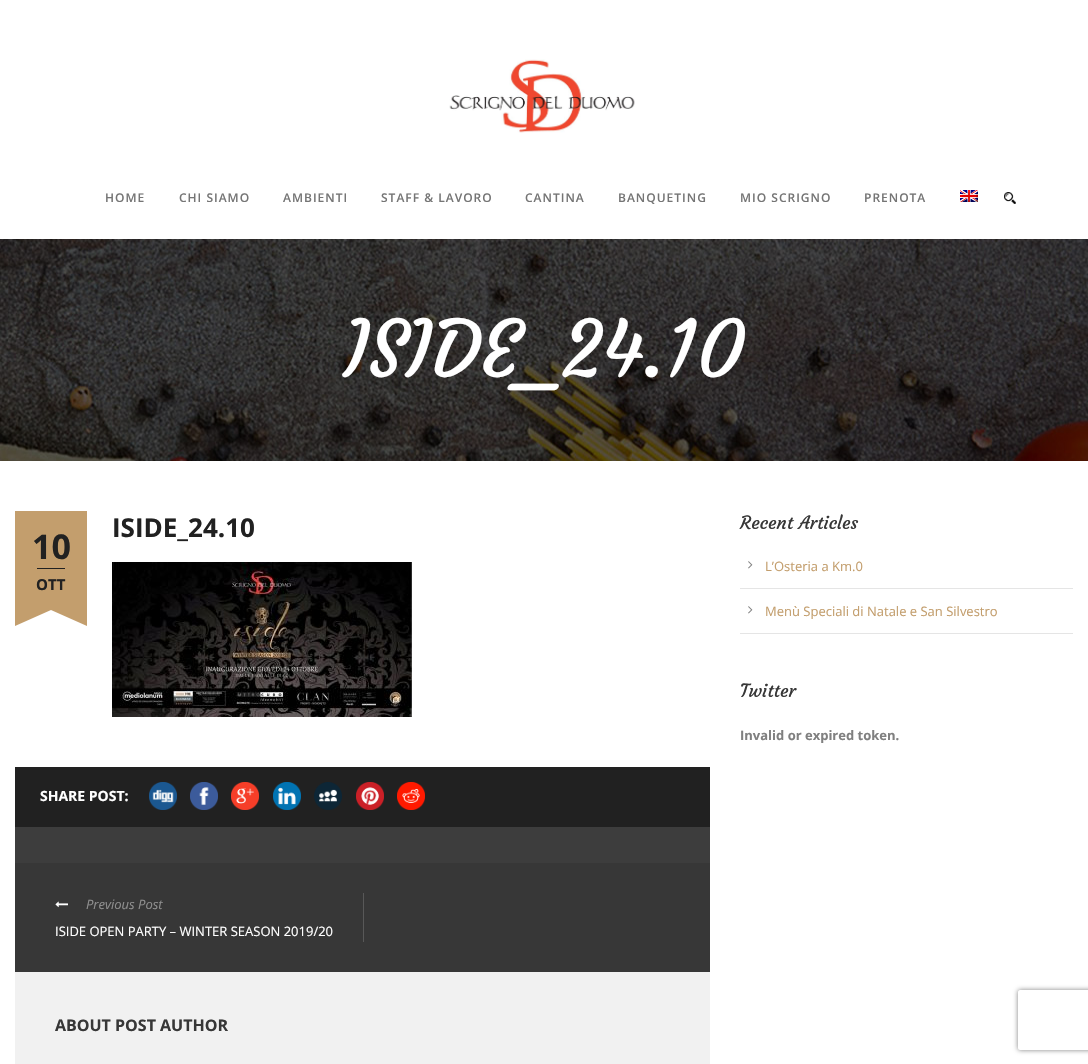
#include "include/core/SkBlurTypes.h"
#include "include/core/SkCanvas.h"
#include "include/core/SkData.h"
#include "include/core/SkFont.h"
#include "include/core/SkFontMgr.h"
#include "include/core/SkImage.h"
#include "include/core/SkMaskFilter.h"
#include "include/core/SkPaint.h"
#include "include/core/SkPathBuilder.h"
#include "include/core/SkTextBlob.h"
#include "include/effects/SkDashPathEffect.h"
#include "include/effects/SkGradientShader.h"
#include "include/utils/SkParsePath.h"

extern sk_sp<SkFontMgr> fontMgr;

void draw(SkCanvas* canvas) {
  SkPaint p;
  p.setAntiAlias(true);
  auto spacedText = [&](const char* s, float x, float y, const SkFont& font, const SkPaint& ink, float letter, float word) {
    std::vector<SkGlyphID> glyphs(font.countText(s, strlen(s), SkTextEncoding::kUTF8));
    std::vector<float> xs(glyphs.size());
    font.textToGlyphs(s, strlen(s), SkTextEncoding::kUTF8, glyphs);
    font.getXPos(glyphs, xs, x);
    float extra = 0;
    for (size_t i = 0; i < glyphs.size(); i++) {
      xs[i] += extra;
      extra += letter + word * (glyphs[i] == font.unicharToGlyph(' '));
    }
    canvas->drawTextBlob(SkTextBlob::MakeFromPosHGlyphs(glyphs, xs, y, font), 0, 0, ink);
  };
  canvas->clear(SK_ColorWHITE);
  canvas->drawImageRect(SkImages::DeferredFromEncodedData(SkData::MakeFromFileName("images/1.png")), SkRect::MakeLTRB(449, 59, 635, 133), SkSamplingOptions());
  canvas->drawImageRect(SkImages::DeferredFromEncodedData(SkData::MakeFromFileName("images/2.png")), SkRect::MakeLTRB(960, 190, 978, 202), SkSamplingOptions());
  canvas->drawImageRect(SkImages::DeferredFromEncodedData(SkData::MakeFromFileName("images/3.png")), SkRect::MakeLTRB(1004, 192, 1016, 204), SkSamplingOptions());
  canvas->drawImageRect(SkImages::DeferredFromEncodedData(SkData::MakeFromFileName("images/4.png")), SkRect::MakeLTRB(0, 239, 1088, 461), SkSamplingOptions());
  canvas->drawImageRect(SkImages::DeferredFromEncodedData(SkData::MakeFromFileName("images/5.png")), SkRect::MakeLTRB(112, 562, 412, 717), SkSamplingOptions());
  p.setColor(SkColorSetRGB(195, 158, 109));
  canvas->drawRect(SkRect::MakeLTRB(15, 511, 87, 610), p);
  p.setColor(SkColorSetRGB(33, 33, 33));
  canvas->drawRect(SkRect::MakeLTRB(37, 568, 65, 569), p);
  p.setColor(SkColorSetRGB(195, 158, 109));
  canvas->drawPath(SkPathBuilder().moveTo(87, 610).lineTo(87, 626).lineTo(51, 610).close().detach(), p);
  canvas->drawPath(SkPathBuilder().moveTo(15, 626).lineTo(15, 610).lineTo(51, 610).close().detach(), p);
  p.setColor(SkColorSetRGB(33, 33, 33));
  canvas->drawRect(SkRect::MakeLTRB(15, 767, 710, 827), p);
  canvas->drawImageRect(SkImages::DeferredFromEncodedData(SkData::MakeFromFileName("images/6.png")), SkRect::MakeLTRB(149, 782, 177, 810), SkSamplingOptions());
  canvas->drawImageRect(SkImages::DeferredFromEncodedData(SkData::MakeFromFileName("images/7.png")), SkRect::MakeLTRB(190, 782, 218, 810), SkSamplingOptions());
  canvas->drawImageRect(SkImages::DeferredFromEncodedData(SkData::MakeFromFileName("images/8.png")), SkRect::MakeLTRB(231, 782, 259, 810), SkSamplingOptions());
  canvas->drawImageRect(SkImages::DeferredFromEncodedData(SkData::MakeFromFileName("images/9.png")), SkRect::MakeLTRB(273, 782, 301, 810), SkSamplingOptions());
  canvas->drawImageRect(SkImages::DeferredFromEncodedData(SkData::MakeFromFileName("images/10.png")), SkRect::MakeLTRB(314, 782, 342, 810), SkSamplingOptions());
  canvas->drawImageRect(SkImages::DeferredFromEncodedData(SkData::MakeFromFileName("images/11.png")), SkRect::MakeLTRB(356, 782, 384, 810), SkSamplingOptions());
  canvas->drawImageRect(SkImages::DeferredFromEncodedData(SkData::MakeFromFileName("images/12.png")), SkRect::MakeLTRB(397, 782, 425, 810), SkSamplingOptions());
  p.setColor(SkColorSetRGB(61, 61, 61));
  canvas->drawRect(SkRect::MakeLTRB(15, 827, 710, 863), p);
  p.setColor(SkColorSetRGB(55, 55, 55));
  canvas->drawRect(SkRect::MakeLTRB(15, 863, 710, 972), p);
  p.setColor(SkColorSetRGB(88, 88, 88));
  canvas->drawRect(SkRect::MakeLTRB(363, 893, 364, 942), p);
  canvas->drawImageRect(SkImages::DeferredFromEncodedData(SkData::MakeFromFileName("images/13.png")), SkRect::MakeLTRB(55, 901, 68, 908), SkSamplingOptions());
  p.setColor(SkColorSetRGB(241, 241, 241));
  canvas->drawRect(SkRect::MakeLTRB(15, 972, 710, 1064), p);
  p.setColor(SkColorSetRGB(229, 229, 229));
  canvas->drawRect(SkRect::MakeLTRB(740, 588, 1073, 589), p);
  canvas->drawImageRect(SkImages::DeferredFromEncodedData(SkData::MakeFromFileName("images/14.png")), SkRect::MakeLTRB(748, 561, 753, 569), SkSamplingOptions());
  canvas->drawRect(SkRect::MakeLTRB(740, 633, 1073, 634), p);
  canvas->drawImageRect(SkImages::DeferredFromEncodedData(SkData::MakeFromFileName("images/14.png")), SkRect::MakeLTRB(748, 606, 753, 614), SkSamplingOptions());
  canvas->save();
  canvas->clipPath(SkPathBuilder(SkPathFillType::kEvenOdd).moveTo(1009, 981).lineTo(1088, 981).lineTo(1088, 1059).lineTo(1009, 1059).close().moveTo(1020, 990).lineTo(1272, 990).cubicTo(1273, 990, 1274, 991, 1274, 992).lineTo(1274, 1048).cubicTo(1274, 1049, 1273, 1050, 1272, 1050).lineTo(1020, 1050).cubicTo(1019, 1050, 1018, 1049, 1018, 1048).lineTo(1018, 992).cubicTo(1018, 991, 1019, 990, 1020, 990).close().detach(), true);
  p.setColor(SkColorSetRGB(128, 128, 128));
  p.setMaskFilter(SkMaskFilter::MakeBlur(kNormal_SkBlurStyle, 2.5f));
  canvas->drawRoundRect(SkRect::MakeLTRB(1018, 990, 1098, 1050), 2, 2, p);
  p.setMaskFilter(nullptr);
  canvas->restore();
  SkFont font1(fontMgr->matchFamilyStyle("Open Sans", SkFontStyle(600, SkFontStyle::kNormal_Width, SkFontStyle::kUpright_Slant)), 12);
  font1.setSubpixel(true);
  p.setColor(SkColorSetRGB(117, 117, 117));
  spacedText("HOME", 105, 202, font1, p, 1, 0);
  spacedText("CHI SIAMO", 179, 202, font1, p, 1, 0);
  spacedText("AMBIENTI", 283, 202, font1, p, 1, 0);
  spacedText("STAFF & LAVORO", 381, 202, font1, p, 1, 0);
  spacedText("CANTINA", 525, 202, font1, p, 1, 0);
  spacedText("BANQUETING", 618, 202, font1, p, 1, 0);
  spacedText("MIO SCRIGNO", 740, 202, font1, p, 1, 0);
  spacedText("PRENOTA", 864, 202, font1, p, 1, 0);
  SkFont font2(fontMgr->matchFamilyStyle("Courgette", SkFontStyle::Normal()), 78);
  font2.setSubpixel(true);
  p.setColor(SK_ColorWHITE);
  canvas->drawString("ISIDE_24.10", 343, 377, font2, p);
  SkFont font3(fontMgr->matchFamilyStyle("Open Sans", SkFontStyle::Bold()), 26);
  font3.setSubpixel(true);
  p.setColor(SkColorSetRGB(33, 33, 33));
  canvas->drawString("ISIDE_24.10", 112, 537, font3, p);
  SkFont font4(fontMgr->matchFamilyStyle("Open Sans", SkFontStyle::Bold()), 34);
  font4.setSubpixel(true);
  canvas->drawString("10", 32, 559, font4, p);
  SkFont font5(fontMgr->matchFamilyStyle("Open Sans", SkFontStyle::Bold()), 15);
  font5.setSubpixel(true);
  canvas->drawString("OTT", 36, 590, font5, p);
  SkFont font6(fontMgr->matchFamilyStyle("Open Sans", SkFontStyle::Bold()), 14);
  font6.setSubpixel(true);
  p.setColor(SK_ColorWHITE);
  canvas->drawString("SHARE POST:", 40, 801, font6, p);
  SkFont font7(fontMgr->matchFamilyStyle("Open Sans", SkFontStyle::Italic()), 13);
  font7.setSubpixel(true);
  p.setColor(SkColorSetRGB(142, 142, 142));
  canvas->drawString("Previous Post", 86, 909, font7, p);
  SkFont font8(fontMgr->matchFamilyStyle("Open Sans", SkFontStyle::Normal()), 13);
  font8.setSubpixel(true);
  p.setColor(SK_ColorWHITE);
  canvas->drawString("ISIDE OPEN PARTY – WINTER SEASON 2019/20", 55, 936, font8, p);
  SkFont font9(fontMgr->matchFamilyStyle("Open Sans", SkFontStyle::Bold()), 16);
  font9.setSubpixel(true);
  p.setColor(SkColorSetRGB(55, 55, 55));
  canvas->drawString("ABOUT POST AUTHOR", 55, 1031, font9, p);
  SkFont font10(fontMgr->matchFamilyStyle("Courgette", SkFontStyle::Normal()), 18);
  font10.setSubpixel(true);
  canvas->drawString("Recent Articles", 740, 529, font10, p);
  p.setColor(SkColorSetRGB(195, 158, 109));
  canvas->drawString("L’Osteria a Km.0", 765, 571, font8, p);
  canvas->drawString("Menù Speciali di Natale e San Silvestro", 765, 616, font8, p);
  p.setColor(SkColorSetRGB(55, 55, 55));
  canvas->drawString("Twitter", 740, 697, font10, p);
  SkFont font11(fontMgr->matchFamilyStyle("Open Sans", SkFontStyle::Bold()), 13);
  font11.setSubpixel(true);
  p.setColor(SkColorSetRGB(128, 128, 128));
  canvas->drawString("Invalid or expired token.", 740, 740, font11, p);
}
